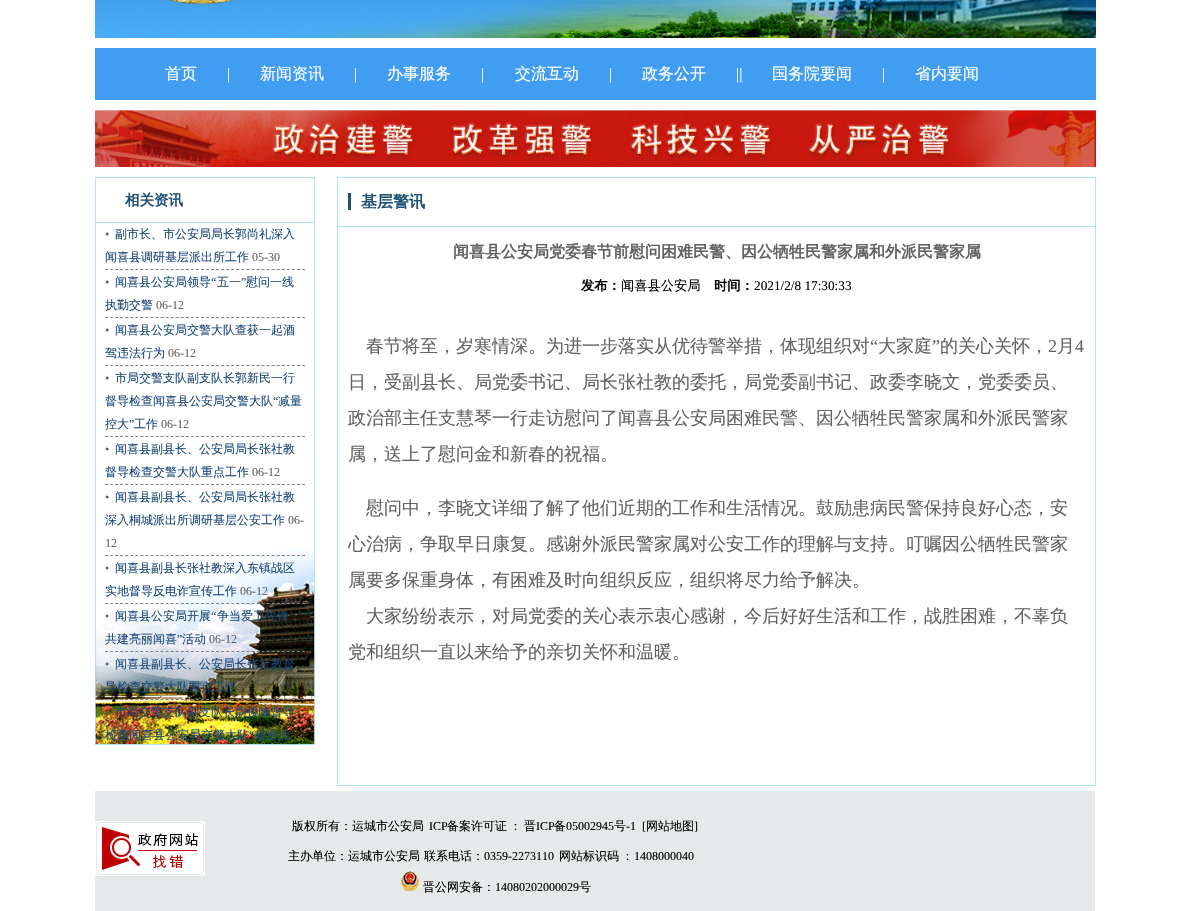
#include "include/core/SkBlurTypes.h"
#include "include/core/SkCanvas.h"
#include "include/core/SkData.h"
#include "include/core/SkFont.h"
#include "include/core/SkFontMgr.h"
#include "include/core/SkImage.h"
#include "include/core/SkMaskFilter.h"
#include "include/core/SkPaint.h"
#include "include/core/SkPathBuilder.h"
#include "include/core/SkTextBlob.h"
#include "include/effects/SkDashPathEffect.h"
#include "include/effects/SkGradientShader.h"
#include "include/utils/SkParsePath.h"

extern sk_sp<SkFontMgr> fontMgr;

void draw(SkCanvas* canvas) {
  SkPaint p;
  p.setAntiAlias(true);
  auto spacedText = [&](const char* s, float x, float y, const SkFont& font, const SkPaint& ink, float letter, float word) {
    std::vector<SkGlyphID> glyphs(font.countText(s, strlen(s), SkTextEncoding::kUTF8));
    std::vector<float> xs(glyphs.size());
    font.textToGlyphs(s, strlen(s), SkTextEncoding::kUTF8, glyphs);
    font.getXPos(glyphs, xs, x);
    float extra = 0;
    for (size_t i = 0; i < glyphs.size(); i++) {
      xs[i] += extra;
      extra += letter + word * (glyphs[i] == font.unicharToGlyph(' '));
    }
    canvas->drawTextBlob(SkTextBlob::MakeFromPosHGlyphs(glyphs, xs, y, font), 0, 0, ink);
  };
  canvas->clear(SK_ColorWHITE);
  canvas->drawImageRect(SkImages::DeferredFromEncodedData(SkData::MakeFromFileName("images/1.png")), SkRect::MakeLTRB(95, 0, 1096, 38), SkSamplingOptions());
  p.setColor(SkColorSetRGB(64, 157, 241));
  canvas->drawRect(SkRect::MakeLTRB(95, 48, 1096, 100), p);
  canvas->drawImageRect(SkImages::DeferredFromEncodedData(SkData::MakeFromFileName("images/2.png")), SkRect::MakeLTRB(95, 110, 1096, 167), SkSamplingOptions());
  canvas->drawImageRect(SkImages::DeferredFromEncodedData(SkData::MakeFromFileName("images/3.png")), SkRect::MakeLTRB(95, 178, 315, 745), SkSamplingOptions());
  p.setStyle(SkPaint::kStroke_Style);
  p.setStrokeWidth(1);
  p.setColor(SkColorSetRGB(171, 231, 236));
  canvas->drawRect(SkRect::MakeLTRB(95.5f, 177.5f, 314.5f, 222.5f), p);
  p.setColor(SkColorSetRGB(128, 128, 128));
  p.setPathEffect(SkDashPathEffect::Make({{3, 2.05f}}, 0));
  canvas->drawPath(SkPathBuilder().moveTo(105, 269.5f).lineTo(305, 269.5f).detach(), p);
  p.setPathEffect(nullptr);
  p.setPathEffect(SkDashPathEffect::Make({{3, 2.05f}}, 0));
  canvas->drawPath(SkPathBuilder().moveTo(105, 317.5f).lineTo(305, 317.5f).detach(), p);
  p.setPathEffect(nullptr);
  p.setPathEffect(SkDashPathEffect::Make({{3, 2.05f}}, 0));
  canvas->drawPath(SkPathBuilder().moveTo(105, 365.5f).lineTo(305, 365.5f).detach(), p);
  p.setPathEffect(nullptr);
  p.setPathEffect(SkDashPathEffect::Make({{3, 2.05f}}, 0));
  canvas->drawPath(SkPathBuilder().moveTo(105, 436.5f).lineTo(305, 436.5f).detach(), p);
  p.setPathEffect(nullptr);
  p.setPathEffect(SkDashPathEffect::Make({{3, 2.05f}}, 0));
  canvas->drawPath(SkPathBuilder().moveTo(105, 484.5f).lineTo(305, 484.5f).detach(), p);
  p.setPathEffect(nullptr);
  p.setPathEffect(SkDashPathEffect::Make({{3, 2.05f}}, 0));
  canvas->drawPath(SkPathBuilder().moveTo(105, 555.5f).lineTo(305, 555.5f).detach(), p);
  p.setPathEffect(nullptr);
  p.setPathEffect(SkDashPathEffect::Make({{3, 2.05f}}, 0));
  canvas->drawPath(SkPathBuilder().moveTo(105, 603.5f).lineTo(305, 603.5f).detach(), p);
  p.setPathEffect(nullptr);
  p.setPathEffect(SkDashPathEffect::Make({{3, 2.05f}}, 0));
  canvas->drawPath(SkPathBuilder().moveTo(105, 651.5f).lineTo(305, 651.5f).detach(), p);
  p.setPathEffect(nullptr);
  p.setPathEffect(SkDashPathEffect::Make({{3, 2.05f}}, 0));
  canvas->drawPath(SkPathBuilder().moveTo(105, 699.5f).lineTo(305, 699.5f).detach(), p);
  p.setPathEffect(nullptr);
  p.setColor(SkColorSetRGB(171, 231, 236));
  canvas->drawRect(SkRect::MakeLTRB(337.5f, 177.5f, 1095.5f, 226.5f), p);
  p.setStyle(SkPaint::kFill_Style);
  p.setColor(SkColorSetRGB(30, 81, 117));
  canvas->drawRect(SkRect::MakeLTRB(348, 193, 351, 210), p);
  p.setColor(SkColorSetRGB(171, 231, 236));
  canvas->drawRect(SkRect::MakeLTRB(1095, 227, 1096, 786), p);
  canvas->drawRect(SkRect::MakeLTRB(337, 785, 1096, 786), p);
  canvas->drawRect(SkRect::MakeLTRB(337, 227, 338, 786), p);
  p.setColor(SkColorSetRGB(230, 233, 234));
  canvas->drawRect(SkRect::MakeLTRB(95, 791, 1095, 911), p);
  canvas->drawImageRect(SkImages::DeferredFromEncodedData(SkData::MakeFromFileName("images/4.png")), SkRect::MakeLTRB(95, 821, 205, 876), SkSamplingOptions());
  canvas->drawImageRect(SkImages::DeferredFromEncodedData(SkData::MakeFromFileName("images/5.png")), SkRect::MakeLTRB(401, 871, 419, 891), SkSamplingOptions());
  SkFont font1(fontMgr->matchFamilyStyle("WenQuanYi Zen Hei", SkFontStyle(500, SkFontStyle::kNormal_Width, SkFontStyle::kUpright_Slant)), 16);
  font1.setSubpixel(true);
  p.setColor(SK_ColorWHITE);
  canvas->drawString("首页", 165, 79, font1, p);
  SkFont font2(fontMgr->matchFamilyStyle("Liberation Serif", SkFontStyle::Normal()), 16);
  font2.setSubpixel(true);
  canvas->drawString("|", 227, 79, font2, p);
  canvas->drawString("新闻资讯", 260, 79, font1, p);
  canvas->drawString("|", 354, 79, font2, p);
  canvas->drawString("办事服务", 387, 79, font1, p);
  canvas->drawString("|", 481, 79, font2, p);
  canvas->drawString("交流互动", 515, 79, font1, p);
  canvas->drawString("|", 609, 79, font2, p);
  canvas->drawString("政务公开", 642, 79, font1, p);
  canvas->drawString("||", 736, 79, font2, p);
  canvas->drawString("国务院要闻", 772, 79, font1, p);
  canvas->drawString("|", 882, 79, font2, p);
  canvas->drawString("省内要闻", 915, 79, font1, p);
  SkFont font3(fontMgr->matchFamilyStyle("WenQuanYi Zen Hei", SkFontStyle::Bold()), 14.5f);
  font3.setSubpixel(true);
  p.setColor(SkColorSetRGB(30, 81, 117));
  canvas->drawString("相关资讯", 125, 205, font3, p);
  SkFont font4(fontMgr->matchFamilyStyle("Liberation Serif", SkFontStyle::Normal()), 12);
  font4.setSubpixel(true);
  p.setColor(SkColorSetRGB(98, 97, 100));
  canvas->drawString("•", 105, 238, font4, p);
  SkFont font5(fontMgr->matchFamilyStyle("WenQuanYi Zen Hei", SkFontStyle(500, SkFontStyle::kNormal_Width, SkFontStyle::kUpright_Slant)), 12);
  font5.setSubpixel(true);
  p.setColor(SkColorSetRGB(27, 73, 125));
  canvas->drawString("副市长、市公安局局长郭尚礼深入", 115, 238, font5, p);
  canvas->drawString("闻喜县调研基层派出所工作", 105, 261, font5, p);
  p.setColor(SkColorSetRGB(98, 97, 100));
  canvas->drawString("05-30", 252, 261, font4, p);
  canvas->drawString("•", 105, 286, font4, p);
  p.setColor(SkColorSetRGB(27, 73, 125));
  canvas->drawString("闻喜县公安局领导", 115, 286, font5, p);
  canvas->drawString("“", 211, 286, font4, p);
  canvas->drawString("五一", 217, 286, font5, p);
  canvas->drawString("”", 241, 286, font4, p);
  canvas->drawString("慰问一线", 246, 286, font5, p);
  canvas->drawString("执勤交警", 105, 309, font5, p);
  p.setColor(SkColorSetRGB(98, 97, 100));
  canvas->drawString("06-12", 156, 309, font4, p);
  canvas->drawString("•", 105, 334, font4, p);
  p.setColor(SkColorSetRGB(27, 73, 125));
  canvas->drawString("闻喜县公安局交警大队查获一起酒", 115, 334, font5, p);
  canvas->drawString("驾违法行为", 105, 357, font5, p);
  p.setColor(SkColorSetRGB(98, 97, 100));
  canvas->drawString("06-12", 168, 357, font4, p);
  canvas->drawString("•", 105, 382, font4, p);
  p.setColor(SkColorSetRGB(27, 73, 125));
  canvas->drawString("市局交警支队副支队长郭新民一行", 115, 382, font5, p);
  canvas->drawString("督导检查闻喜县公安局交警大队", 105, 405, font5, p);
  canvas->drawString("“", 273, 405, font4, p);
  canvas->drawString("减量", 278, 405, font5, p);
  canvas->drawString("控大", 105, 428, font5, p);
  canvas->drawString("”", 129, 428, font4, p);
  canvas->drawString("工作", 134, 428, font5, p);
  p.setColor(SkColorSetRGB(98, 97, 100));
  canvas->drawString("06-12", 161, 428, font4, p);
  canvas->drawString("•", 105, 453, font4, p);
  p.setColor(SkColorSetRGB(27, 73, 125));
  canvas->drawString("闻喜县副县长、公安局局长张社教", 115, 453, font5, p);
  canvas->drawString("督导检查交警大队重点工作", 105, 476, font5, p);
  p.setColor(SkColorSetRGB(98, 97, 100));
  canvas->drawString("06-12", 252, 476, font4, p);
  canvas->drawString("•", 105, 501, font4, p);
  p.setColor(SkColorSetRGB(27, 73, 125));
  canvas->drawString("闻喜县副县长、公安局局长张社教", 115, 501, font5, p);
  canvas->drawString("深入桐城派出所调研基层公安工作", 105, 524, font5, p);
  p.setColor(SkColorSetRGB(98, 97, 100));
  canvas->drawString("06-", 288, 524, font4, p);
  canvas->drawString("12", 105, 547, font4, p);
  canvas->drawString("•", 105, 572, font4, p);
  p.setColor(SkColorSetRGB(27, 73, 125));
  canvas->drawString("闻喜县副县长张社教深入东镇战区", 115, 572, font5, p);
  canvas->drawString("实地督导反电诈宣传工作", 105, 595, font5, p);
  p.setColor(SkColorSetRGB(98, 97, 100));
  canvas->drawString("06-12", 240, 595, font4, p);
  canvas->drawString("•", 105, 620, font4, p);
  p.setColor(SkColorSetRGB(27, 73, 125));
  canvas->drawString("闻喜县公安局开展", 115, 620, font5, p);
  canvas->drawString("“", 211, 620, font4, p);
  canvas->drawString("争当爱卫先锋，", 217, 620, font5, p);
  canvas->drawString("共建亮丽闻喜", 105, 643, font5, p);
  canvas->drawString("”", 177, 643, font4, p);
  canvas->drawString("活动", 182, 643, font5, p);
  p.setColor(SkColorSetRGB(98, 97, 100));
  canvas->drawString("06-12", 209, 643, font4, p);
  canvas->drawString("•", 105, 668, font4, p);
  p.setColor(SkColorSetRGB(27, 73, 125));
  canvas->drawString("闻喜县副县长、公安局长张社教督", 115, 668, font5, p);
  canvas->drawString("导检查交警大队重点工作", 105, 691, font5, p);
  p.setColor(SkColorSetRGB(98, 97, 100));
  canvas->drawString("•", 105, 716, font4, p);
  p.setColor(SkColorSetRGB(27, 73, 125));
  canvas->drawString("市局交警支队副支队长尉俊峰督导", 115, 716, font5, p);
  canvas->drawString("检查闻喜县公安局交警大队", 105, 739, font5, p);
  canvas->drawString("“", 249, 739, font4, p);
  canvas->drawString("减量控", 254, 739, font5, p);
  SkFont font6(fontMgr->matchFamilyStyle("WenQuanYi Zen Hei", SkFontStyle::Bold()), 16);
  font6.setSubpixel(true);
  p.setColor(SkColorSetRGB(30, 81, 117));
  canvas->drawString("基层警讯", 361, 207, font6, p);
  p.setColor(SkColorSetRGB(98, 97, 100));
  canvas->drawString("闻喜县公安局党委春节前慰问困难民警、因公牺牲民警家属和外派民警家属", 453, 257, font6, p);
  SkFont font7(fontMgr->matchFamilyStyle("WenQuanYi Zen Hei", SkFontStyle::Bold()), 13.25f);
  font7.setSubpixel(true);
  p.setColor(SK_ColorBLACK);
  canvas->drawString("发布：", 581, 290, font7, p);
  SkFont font8(fontMgr->matchFamilyStyle("WenQuanYi Zen Hei", SkFontStyle(500, SkFontStyle::kNormal_Width, SkFontStyle::kUpright_Slant)), 13.25f);
  font8.setSubpixel(true);
  canvas->drawString("闻喜县公安局", 621, 290, font8, p);
  canvas->drawString("时间：", 714, 290, font7, p);
  SkFont font9(fontMgr->matchFamilyStyle("Liberation Serif", SkFontStyle::Normal()), 13.25f);
  font9.setSubpixel(true);
  canvas->drawString("2021/2/8 17:30:33", 754, 290, font9, p);
  SkFont font10(fontMgr->matchFamilyStyle("WenQuanYi Zen Hei", SkFontStyle(500, SkFontStyle::kNormal_Width, SkFontStyle::kUpright_Slant)), 18);
  font10.setSubpixel(true);
  p.setColor(SkColorSetRGB(98, 97, 100));
  canvas->drawString("春节将至，岁寒情深。为进一步落实从优待警举措，体现组织对", 366, 352, font10, p);
  SkFont font11(fontMgr->matchFamilyStyle("Liberation Serif", SkFontStyle::Normal()), 18);
  font11.setSubpixel(true);
  canvas->drawString("“", 870, 352, font11, p);
  canvas->drawString("大家庭", 878, 352, font10, p);
  canvas->drawString("”", 932, 352, font11, p);
  canvas->drawString("的关心关怀，", 940, 352, font10, p);
  canvas->drawString("2", 1048, 352, font11, p);
  canvas->drawString("月", 1057, 352, font10, p);
  canvas->drawString("4", 1075, 352, font11, p);
  canvas->drawString("日，受副县长、局党委书记、局长张社教的委托，局党委副书记、政委李晓文，党委委员、", 348, 388, font10, p);
  canvas->drawString("政治部主任支慧琴一行走访慰问了闻喜县公安局困难民警、因公牺牲民警家属和外派民警家", 348, 424, font10, p);
  canvas->drawString("属，送上了慰问金和新春的祝福。", 348, 460, font10, p);
  canvas->drawString("慰问中，李晓文详细了解了他们近期的工作和生活情况。鼓励患病民警保持良好心态，安", 366, 514, font10, p);
  canvas->drawString("心治病，争取早日康复。感谢外派民警家属对公安工作的理解与支持。叮嘱因公牺牲民警家", 348, 550, font10, p);
  canvas->drawString("属要多保重身体，有困难及时向组织反应，组织将尽力给予解决。", 348, 586, font10, p);
  canvas->drawString("大家纷纷表示，对局党委的关心表示衷心感谢，今后好好生活和工作，战胜困难，不辜负", 366, 622, font10, p);
  canvas->drawString("党和组织一直以来给予的亲切关怀和温暖。", 348, 658, font10, p);
  p.setColor(SK_ColorBLACK);
  canvas->drawString("版权所有：运城市公安局", 292, 830, font5, p);
  canvas->drawString("ICP", 429, 830, font4, p);
  spacedText("备案许可证 ：", 447, 830, font5, p, 0, -1);
  canvas->drawString("晋", 524, 830, font5, p);
  canvas->drawString("ICP", 536, 830, font4, p);
  canvas->drawString("备", 554, 830, font5, p);
  canvas->drawString("05002945", 566, 830, font4, p);
  canvas->drawString("号", 614, 830, font5, p);
  canvas->drawString("-1", 626, 830, font4, p);
  canvas->drawString("[", 642, 830, font4, p);
  canvas->drawString("网站地图", 646, 830, font5, p);
  canvas->drawString("]", 694, 830, font4, p);
  canvas->drawString("主办单位：运城市公安局", 288, 860, font5, p);
  canvas->drawString("联系电话：", 424, 860, font5, p);
  canvas->drawString("0359-2273110", 484, 860, font4, p);
  spacedText("网站标识码 ：", 559, 860, font5, p, 0, -1);
  canvas->drawString("1408000040", 634, 860, font4, p);
  canvas->drawString("晋公网安备：", 423, 891, font5, p);
  canvas->drawString("14080202000029", 495, 891, font4, p);
  canvas->drawString("号", 579, 891, font5, p);
}
